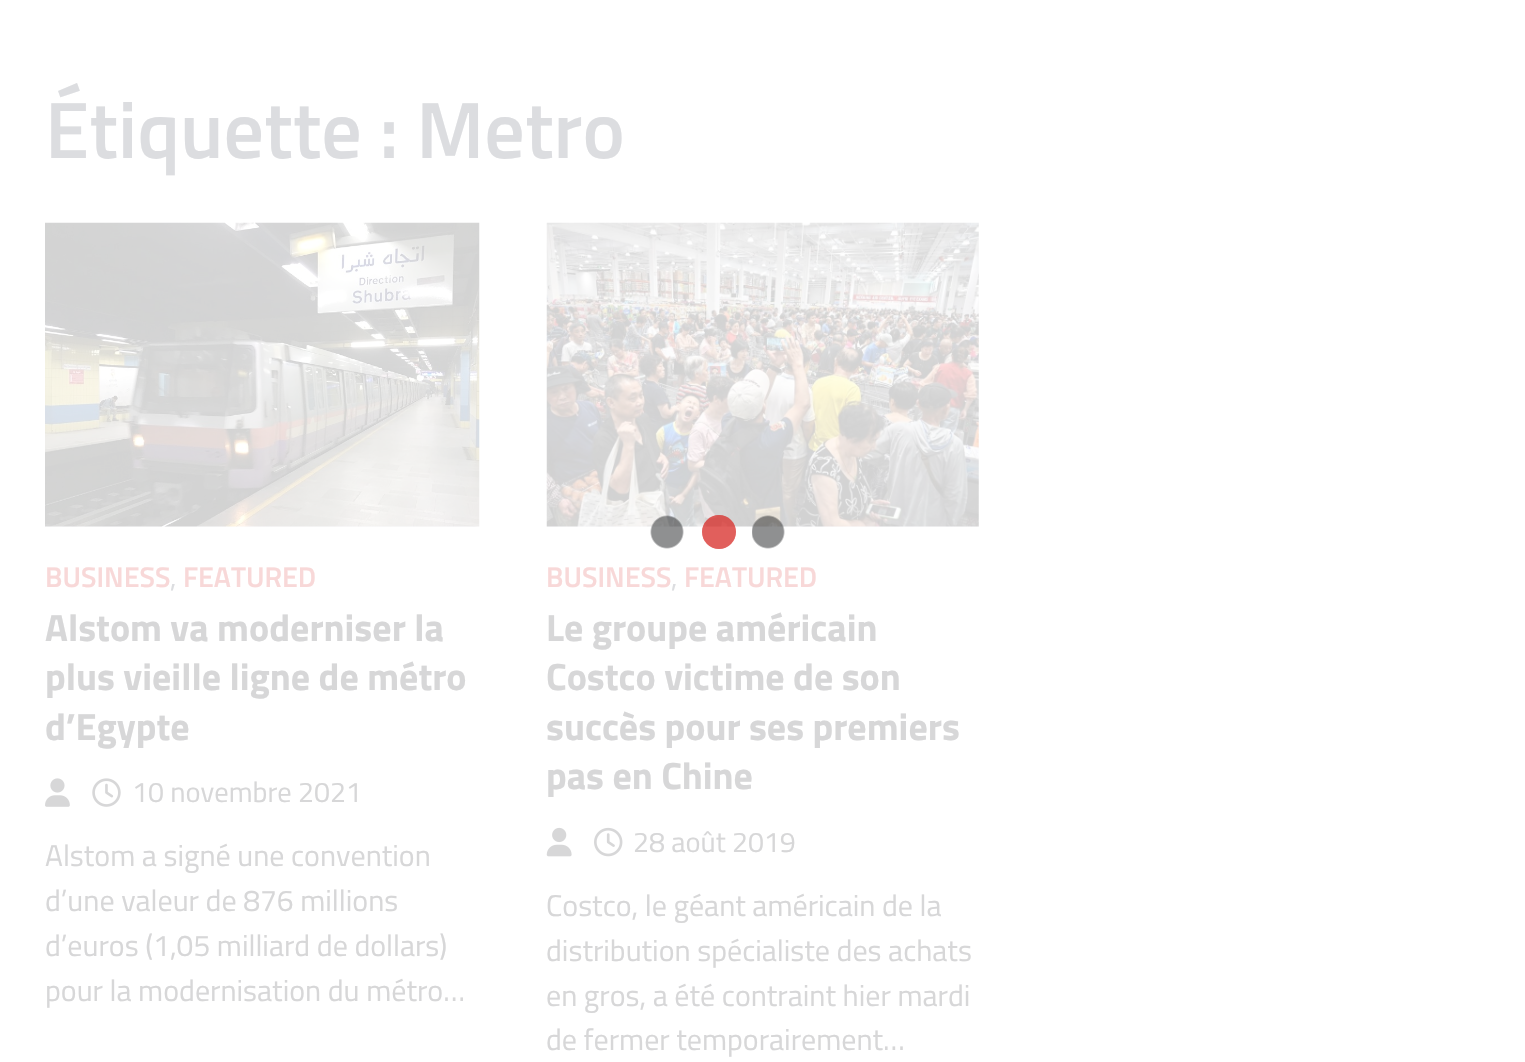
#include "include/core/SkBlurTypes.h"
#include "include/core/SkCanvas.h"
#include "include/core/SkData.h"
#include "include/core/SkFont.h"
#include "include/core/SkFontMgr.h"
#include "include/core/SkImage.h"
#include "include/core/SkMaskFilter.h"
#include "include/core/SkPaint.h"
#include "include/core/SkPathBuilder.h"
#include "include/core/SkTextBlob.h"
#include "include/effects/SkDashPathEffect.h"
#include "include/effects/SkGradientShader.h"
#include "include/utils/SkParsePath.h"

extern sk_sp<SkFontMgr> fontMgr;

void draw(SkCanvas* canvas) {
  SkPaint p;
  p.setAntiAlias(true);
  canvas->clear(SK_ColorWHITE);
  p.setColor(SkColorSetRGB(252, 253, 254));
  canvas->drawRect(SkRect::MakeLTRB(45, 526, 479, 527), p);
  canvas->drawImageRect(SkImages::DeferredFromEncodedData(SkData::MakeFromFileName("images/1.png")), SkRect::MakeLTRB(45, 222, 480, 527), SkSamplingOptions());
  canvas->drawImageRect(SkImages::DeferredFromEncodedData(SkData::MakeFromFileName("images/2.png")), SkRect::MakeLTRB(45, 778, 70, 807), SkSamplingOptions());
  canvas->drawImageRect(SkImages::DeferredFromEncodedData(SkData::MakeFromFileName("images/3.png")), SkRect::MakeLTRB(92, 778, 121, 807), SkSamplingOptions());
  canvas->drawRect(SkRect::MakeLTRB(547, 223, 979, 527), p);
  canvas->drawImageRect(SkImages::DeferredFromEncodedData(SkData::MakeFromFileName("images/4.png")), SkRect::MakeLTRB(546, 222, 979, 527), SkSamplingOptions());
  canvas->drawImageRect(SkImages::DeferredFromEncodedData(SkData::MakeFromFileName("images/5.png")), SkRect::MakeLTRB(546, 827, 572, 857), SkSamplingOptions());
  canvas->drawImageRect(SkImages::DeferredFromEncodedData(SkData::MakeFromFileName("images/6.png")), SkRect::MakeLTRB(594, 827, 623, 857), SkSamplingOptions());
  {
    const SkColor colors[] = {SkColorSetARGB(128, 32, 33, 36), SkColorSetARGB(0, 32, 33, 36)};
    const float stops[] = {0.9f, 1};
    p.setShader(SkGradientShader::MakeRadial({768, 532}, 17, colors, stops, 2, SkTileMode::kClamp));
    p.setAlpha(255);
  }
  canvas->drawRect(SkRect::MakeLTRB(752, 515, 785, 549), p);
  {
    const SkColor colors[] = {SkColorSetARGB(128, 32, 33, 36), SkColorSetARGB(0, 32, 33, 36)};
    const float stops[] = {0.9f, 1};
    p.setShader(SkGradientShader::MakeRadial({667, 532}, 17, colors, stops, 2, SkTileMode::kClamp));
    p.setAlpha(255);
  }
  canvas->drawRect(SkRect::MakeLTRB(650, 515, 684, 549), p);
  p.setShader(nullptr);
  p.setColor(SkColorSetARGB(128, 216, 41, 38));
  canvas->drawCircle(719, 532, 17, p);
  canvas->drawCircle(719, 532, 17, p);
  SkFont font1(fontMgr->matchFamilyStyle("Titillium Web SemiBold", SkFontStyle(600, SkFontStyle::kNormal_Width, SkFontStyle::kUpright_Slant)), 80);
  font1.setSubpixel(true);
  p.setColor(SkColorSetRGB(220, 221, 224));
  canvas->drawString("Étiquette : Metro", 45, 158, font1, p);
  SkFont font2(fontMgr->matchFamilyStyle("Titillium Web SemiBold", SkFontStyle(600, SkFontStyle::kNormal_Width, SkFontStyle::kUpright_Slant)), 28.5f);
  font2.setSubpixel(true);
  p.setColor(SkColorSetRGB(248, 216, 216));
  canvas->drawString("BUSINESS", 45, 587, font2, p);
  SkFont font3(fontMgr->matchFamilyStyle("Titillium Web", SkFontStyle::Normal()), 28.5f);
  font3.setSubpixel(true);
  p.setColor(SkColorSetRGB(220, 221, 224));
  canvas->drawString(",", 170, 587, font3, p);
  p.setColor(SkColorSetRGB(248, 216, 216));
  canvas->drawString("FEATURED", 183, 587, font2, p);
  SkFont font4(fontMgr->matchFamilyStyle("Titillium Web", SkFontStyle::Bold()), 38);
  font4.setSubpixel(true);
  p.setColor(SkColorSetRGB(215, 215, 216));
  canvas->drawString("Alstom va moderniser la", 45, 641, font4, p);
  canvas->drawString("plus vieille ligne de métro", 45, 690, font4, p);
  canvas->drawString("d’Egypte", 45, 740, font4, p);
  canvas->drawString("10 novembre 2021", 132, 802, font3, p);
  SkFont font5(fontMgr->matchFamilyStyle("Titillium Web", SkFontStyle::Normal()), 30);
  font5.setSubpixel(true);
  canvas->drawString("Alstom a signé une convention", 45, 866, font5, p);
  canvas->drawString("d’une valeur de 876 millions", 45, 911, font5, p);
  canvas->drawString("d’euros (1,05 milliard de dollars)", 45, 956, font5, p);
  canvas->drawString("pour la modernisation du métro…", 45, 1001, font5, p);
  p.setColor(SkColorSetRGB(248, 216, 216));
  canvas->drawString("BUSINESS", 546, 587, font2, p);
  p.setColor(SkColorSetRGB(220, 221, 224));
  canvas->drawString(",", 671, 587, font3, p);
  p.setColor(SkColorSetRGB(248, 216, 216));
  canvas->drawString("FEATURED", 684, 587, font2, p);
  p.setColor(SkColorSetRGB(215, 215, 216));
  canvas->drawString("Le groupe américain", 546, 641, font4, p);
  canvas->drawString("Costco victime de son", 546, 690, font4, p);
  canvas->drawString("succès pour ses premiers", 546, 740, font4, p);
  canvas->drawString("pas en Chine", 546, 789, font4, p);
  canvas->drawString("28 août 2019", 633, 852, font3, p);
  canvas->drawString("Costco, le géant américain de la", 546, 916, font5, p);
  canvas->drawString("distribution spécialiste des achats", 546, 961, font5, p);
  canvas->drawString("en gros, a été contraint hier mardi", 546, 1006, font5, p);
  canvas->drawString("de fermer temporairement…", 546, 1050, font5, p);
}
